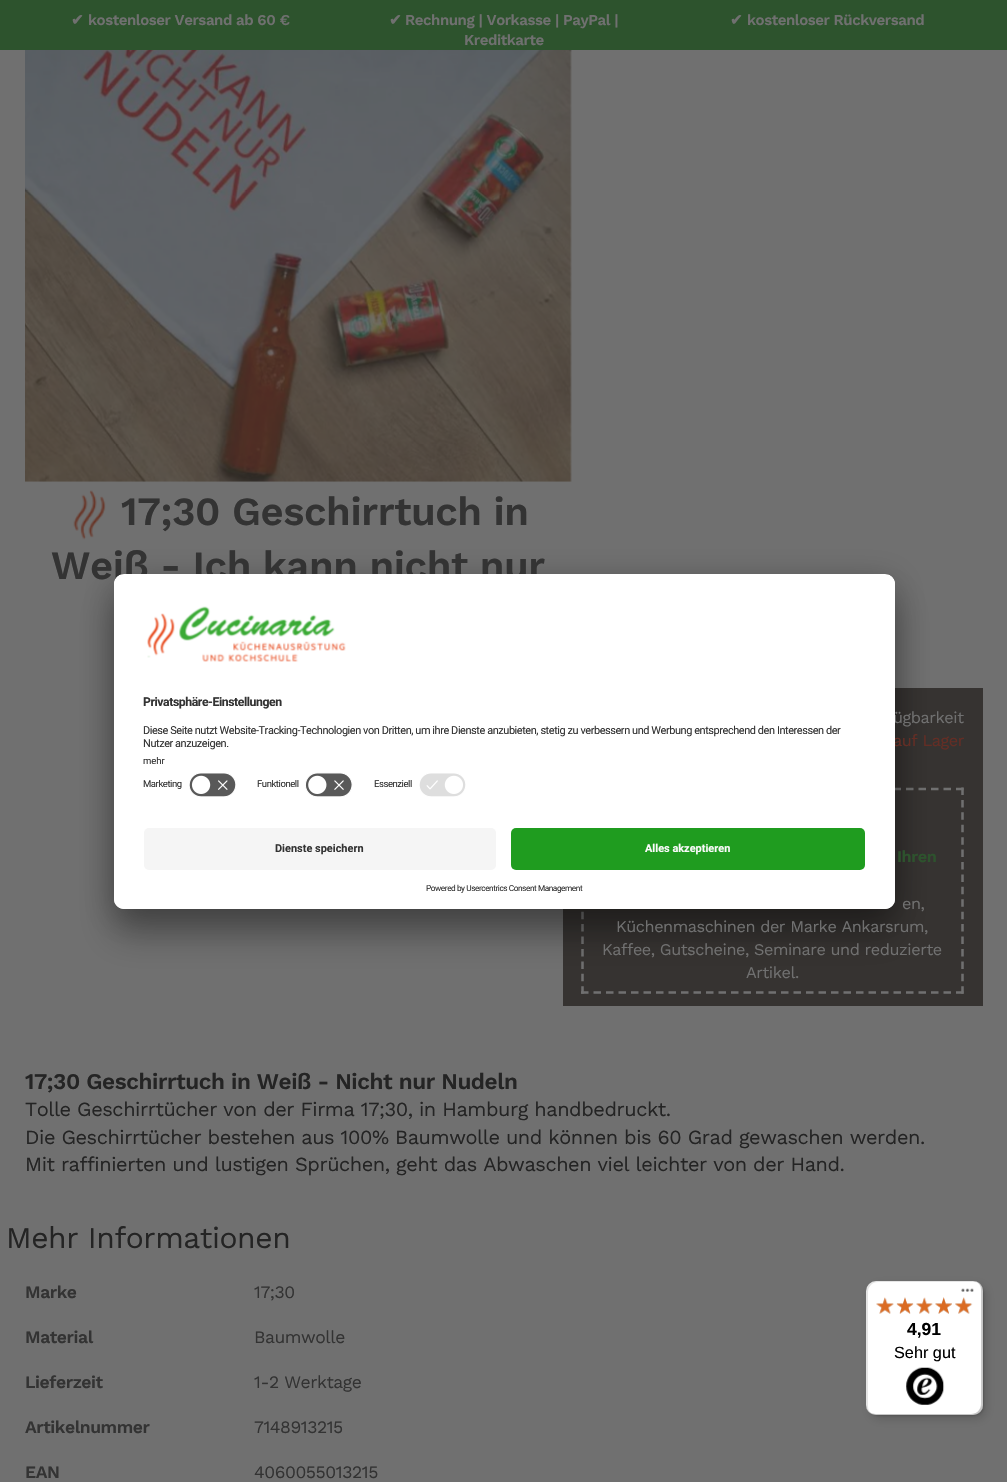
#include "include/core/SkBlurTypes.h"
#include "include/core/SkCanvas.h"
#include "include/core/SkData.h"
#include "include/core/SkFont.h"
#include "include/core/SkFontMgr.h"
#include "include/core/SkImage.h"
#include "include/core/SkMaskFilter.h"
#include "include/core/SkPaint.h"
#include "include/core/SkPathBuilder.h"
#include "include/core/SkTextBlob.h"
#include "include/effects/SkDashPathEffect.h"
#include "include/effects/SkGradientShader.h"
#include "include/utils/SkParsePath.h"

extern sk_sp<SkFontMgr> fontMgr;

void draw(SkCanvas* canvas) {
  SkPaint p;
  p.setAntiAlias(true);
  auto spacedText = [&](const char* s, float x, float y, const SkFont& font, const SkPaint& ink, float letter, float word) {
    std::vector<SkGlyphID> glyphs(font.countText(s, strlen(s), SkTextEncoding::kUTF8));
    std::vector<float> xs(glyphs.size());
    font.textToGlyphs(s, strlen(s), SkTextEncoding::kUTF8, glyphs);
    font.getXPos(glyphs, xs, x);
    float extra = 0;
    for (size_t i = 0; i < glyphs.size(); i++) {
      xs[i] += extra;
      extra += letter + word * (glyphs[i] == font.unicharToGlyph(' '));
    }
    canvas->drawTextBlob(SkTextBlob::MakeFromPosHGlyphs(glyphs, xs, y, font), 0, 0, ink);
  };
  canvas->clear(SkColorSetRGB(112, 112, 112));
  p.setColor(SkColorSetRGB(45, 83, 45));
  canvas->drawRect(SkRect::MakeLTRB(0, 0, 1007, 50), p);
  canvas->drawImageRect(SkImages::DeferredFromEncodedData(SkData::MakeFromFileName("images/1.png")), SkRect::MakeLTRB(25, 50, 572, 482), SkSamplingOptions());
  canvas->drawImageRect(SkImages::DeferredFromEncodedData(SkData::MakeFromFileName("images/2.png")), SkRect::MakeLTRB(73, 490, 106, 540), SkSamplingOptions());
  p.setColor(SkColorSetRGB(54, 51, 49));
  canvas->drawRect(SkRect::MakeLTRB(563, 688, 983, 1006), p);
  p.setStyle(SkPaint::kStroke_Style);
  p.setStrokeWidth(2.5f);
  p.setColor(SkColorSetRGB(112, 112, 112));
  p.setPathEffect(SkDashPathEffect::Make({{7.5f, 5}}, 0));
  canvas->drawPath(SkPathBuilder().moveTo(581, 789).lineTo(964, 789).detach(), p);
  p.setPathEffect(nullptr);
  p.setPathEffect(SkDashPathEffect::Make({{7.5f, 4.92f}}, 0));
  canvas->drawPath(SkPathBuilder().moveTo(962.5f, 787.5f).lineTo(962.5f, 994).detach(), p);
  p.setPathEffect(nullptr);
  p.setPathEffect(SkDashPathEffect::Make({{7.5f, 5}}, 0));
  canvas->drawPath(SkPathBuilder().moveTo(581, 992.5f).lineTo(964, 992.5f).detach(), p);
  p.setPathEffect(nullptr);
  p.setPathEffect(SkDashPathEffect::Make({{7.5f, 4.92f}}, 0));
  canvas->drawPath(SkPathBuilder().moveTo(582.5f, 787.5f).lineTo(582.5f, 994).detach(), p);
  p.setPathEffect(nullptr);
  p.setStyle(SkPaint::kFill_Style);
  p.setColor(SkColorSetARGB(77, 0, 0, 0));
  p.setMaskFilter(SkMaskFilter::MakeBlur(kNormal_SkBlurStyle, 17.5f));
  canvas->drawRoundRect(SkRect::MakeLTRB(114, 599, 895, 934), 10, 10, p);
  p.setMaskFilter(nullptr);
  p.setColor(SkColorSetARGB(56, 0, 0, 0));
  p.setMaskFilter(SkMaskFilter::MakeBlur(kNormal_SkBlurStyle, 16));
  canvas->drawRoundRect(SkRect::MakeLTRB(114, 580, 895, 915), 10, 10, p);
  p.setMaskFilter(nullptr);
  p.setColor(SkColorSetARGB(38, 0, 0, 0));
  p.setMaskFilter(SkMaskFilter::MakeBlur(kNormal_SkBlurStyle, 5));
  canvas->drawRoundRect(SkRect::MakeLTRB(870, 1285, 986, 1419), 10, 10, p);
  p.setMaskFilter(nullptr);
  p.setMaskFilter(SkMaskFilter::MakeBlur(kNormal_SkBlurStyle, 1));
  canvas->drawRoundRect(SkRect::MakeLTRB(868, 1283, 984, 1416), 10, 10, p);
  p.setMaskFilter(nullptr);
  p.setColor(SK_ColorWHITE);
  canvas->drawRoundRect(SkRect::MakeLTRB(866, 1281, 983, 1415), 10, 10, p);
  p.setColor(SkColorSetARGB(26, 0, 0, 0));
  canvas->drawPath(SkPathBuilder().moveTo(878, 1282).lineTo(974, 1282).cubicTo(977, 1282, 980, 1284, 982, 1286).cubicTo(980, 1283, 977, 1281, 973, 1281).lineTo(876, 1281).cubicTo(870, 1281, 866, 1285, 866, 1291).lineTo(866, 1405).cubicTo(866, 1409, 868, 1412, 872, 1414).cubicTo(869, 1412, 868, 1409, 868, 1406).lineTo(868, 1292).cubicTo(868, 1287, 872, 1282, 878, 1282).close().detach(), p);
  p.setColor(SkColorSetARGB(51, 0, 0, 0));
  canvas->drawPath(SkPathBuilder().moveTo(868, 1412).cubicTo(870, 1414, 873, 1415, 876, 1415).lineTo(973, 1415).cubicTo(979, 1415, 983, 1411, 983, 1405).lineTo(983, 1291).cubicTo(983, 1287, 981, 1284, 977, 1282).cubicTo(980, 1284, 981, 1287, 981, 1290).lineTo(981, 1404).cubicTo(981, 1409, 977, 1414, 971, 1414).lineTo(875, 1414).cubicTo(872, 1414, 870, 1413, 868, 1412).close().detach(), p);
  p.setColor(SkColorSetARGB(51, 50, 50, 50));
  canvas->drawPath(SkPathBuilder().moveTo(866, 1404).lineTo(866, 1405).cubicTo(866, 1411, 870, 1415, 876, 1415).lineTo(973, 1415).cubicTo(979, 1415, 983, 1411, 983, 1405).lineTo(983, 1291).cubicTo(983, 1287, 981, 1284, 978, 1282).cubicTo(980, 1284, 982, 1287, 982, 1290).lineTo(982, 1404).cubicTo(982, 1410, 977, 1414, 972, 1414).lineTo(876, 1414).cubicTo(870, 1414, 866, 1410, 866, 1404).close().detach(), p);
  p.setColor(SkColorSetARGB(77, 255, 255, 255));
  canvas->drawPath(SkPathBuilder().moveTo(982, 1291).cubicTo(982, 1285, 977, 1281, 972, 1281).lineTo(973, 1281).cubicTo(979, 1281, 983, 1285, 983, 1291).lineTo(983, 1405).cubicTo(983, 1411, 979, 1415, 973, 1415).lineTo(876, 1415).cubicTo(870, 1415, 866, 1411, 866, 1405).lineTo(866, 1404).cubicTo(866, 1410, 870, 1414, 876, 1414).lineTo(972, 1414).cubicTo(977, 1414, 982, 1410, 982, 1404).close().detach(), p);
  canvas->drawImageRect(SkImages::DeferredFromEncodedData(SkData::MakeFromFileName("images/7.png")), SkRect::MakeLTRB(961, 1288, 974, 1292), SkSamplingOptions());
  canvas->drawImageRect(SkImages::DeferredFromEncodedData(SkData::MakeFromFileName("images/8.png")), SkRect::MakeLTRB(876, 1298, 894, 1314), SkSamplingOptions());
  canvas->drawImageRect(SkImages::DeferredFromEncodedData(SkData::MakeFromFileName("images/9.png")), SkRect::MakeLTRB(897, 1297, 913, 1314), SkSamplingOptions());
  canvas->drawImageRect(SkImages::DeferredFromEncodedData(SkData::MakeFromFileName("images/10.png")), SkRect::MakeLTRB(916, 1298, 933, 1314), SkSamplingOptions());
  canvas->drawImageRect(SkImages::DeferredFromEncodedData(SkData::MakeFromFileName("images/11.png")), SkRect::MakeLTRB(935, 1297, 952, 1314), SkSamplingOptions());
  canvas->drawImageRect(SkImages::DeferredFromEncodedData(SkData::MakeFromFileName("images/12.png")), SkRect::MakeLTRB(955, 1297, 973, 1314), SkSamplingOptions());
  canvas->drawImageRect(SkImages::DeferredFromEncodedData(SkData::MakeFromFileName("images/13.png")), SkRect::MakeLTRB(876, 1297, 894, 1314), SkSamplingOptions());
  canvas->drawImageRect(SkImages::DeferredFromEncodedData(SkData::MakeFromFileName("images/14.png")), SkRect::MakeLTRB(896, 1297, 914, 1314), SkSamplingOptions());
  canvas->drawImageRect(SkImages::DeferredFromEncodedData(SkData::MakeFromFileName("images/15.png")), SkRect::MakeLTRB(916, 1297, 933, 1314), SkSamplingOptions());
  canvas->drawImageRect(SkImages::DeferredFromEncodedData(SkData::MakeFromFileName("images/16.png")), SkRect::MakeLTRB(935, 1297, 952, 1314), SkSamplingOptions());
  canvas->drawImageRect(SkImages::DeferredFromEncodedData(SkData::MakeFromFileName("images/17.png")), SkRect::MakeLTRB(955, 1297, 972, 1314), SkSamplingOptions());
  canvas->drawImageRect(SkImages::DeferredFromEncodedData(SkData::MakeFromFileName("images/18.png")), SkRect::MakeLTRB(906, 1367, 945, 1405), SkSamplingOptions());
  SkFont font1(fontMgr->matchFamilyStyle("DejaVu Sans", SkFontStyle::Bold()), 15);
  font1.setSubpixel(true);
  p.setColor(SkColorSetRGB(112, 112, 112));
  spacedText("✔", 71, 25, font1, p, -0.43f, 0);
  SkFont font2(fontMgr->matchFamilyStyle("Work Sans", SkFontStyle(600, SkFontStyle::kNormal_Width, SkFontStyle::kUpright_Slant)), 15);
  font2.setSubpixel(true);
  spacedText("kostenloser Versand ab 60 €", 88, 25, font2, p, -0.43f, 0);
  spacedText("✔", 389, 25, font1, p, -0.43f, 0);
  spacedText("Rechnung | Vorkasse | PayPal |", 405, 25, font2, p, -0.43f, 0);
  spacedText("Kreditkarte", 464, 45, font2, p, -0.43f, 0);
  spacedText("✔", 730, 25, font1, p, -0.43f, 0);
  spacedText("kostenloser Rückversand", 747, 25, font2, p, -0.43f, 0);
  SkFont font3(fontMgr->matchFamilyStyle("Work Sans", SkFontStyle(600, SkFontStyle::kNormal_Width, SkFontStyle::kUpright_Slant)), 40);
  font3.setSubpixel(true);
  p.setColor(SkColorSetRGB(51, 51, 51));
  spacedText("17;30 Geschirrtuch in", 121, 525, font3, p, -0.43f, 0);
  spacedText("Weiß - Ich kann nicht nur", 51, 579, font3, p, -0.43f, 0);
  SkFont font4(fontMgr->matchFamilyStyle("Work Sans", SkFontStyle::Normal()), 16.25f);
  font4.setSubpixel(true);
  p.setColor(SkColorSetRGB(112, 112, 112));
  spacedText("ügbarkeit", 893, 723, font4, p, -0.43f, 0);
  p.setColor(SkColorSetRGB(101, 45, 36));
  spacedText("auf Lager", 893, 746, font4, p, -0.43f, 0);
  SkFont font5(fontMgr->matchFamilyStyle("Work Sans", SkFontStyle(600, SkFontStyle::kNormal_Width, SkFontStyle::kUpright_Slant)), 16.25f);
  font5.setSubpixel(true);
  p.setColor(SkColorSetRGB(45, 83, 45));
  spacedText("Ihren", 897, 862, font5, p, -0.43f, 0);
  p.setColor(SkColorSetRGB(112, 112, 112));
  spacedText("en,", 902, 909, font4, p, -0.43f, 0);
  spacedText("Küchenmaschinen der Marke Ankarsrum,", 616, 932, font4, p, -0.43f, 0);
  spacedText("Kaffee, Gutscheine, Seminare und reduzierte", 602, 955, font4, p, -0.43f, 0);
  spacedText("Artikel.", 746, 978, font4, p, -0.43f, 0);
  SkFont font6(fontMgr->matchFamilyStyle("Work Sans", SkFontStyle(600, SkFontStyle::kNormal_Width, SkFontStyle::kUpright_Slant)), 22.5f);
  font6.setSubpixel(true);
  p.setColor(SkColorSetRGB(36, 36, 36));
  spacedText("17;30 Geschirrtuch in Weiß - Nicht nur Nudeln", 25, 1089, font6, p, -0.43f, 0);
  SkFont font7(fontMgr->matchFamilyStyle("Work Sans", SkFontStyle::Normal()), 20);
  font7.setSubpixel(true);
  spacedText("Tolle Geschirrtücher von der Firma 17;30, in Hamburg handbedruckt.", 25, 1116, font7, p, -0.43f, 0);
  spacedText("Die Geschirrtücher bestehen aus 100% Baumwolle und können bis 60 Grad gewaschen werden.", 25, 1144, font7, p, -0.43f, 0);
  spacedText("Mit raffinierten und lustigen Sprüchen, geht das Abwaschen viel leichter von der Hand.", 25, 1171, font7, p, -0.43f, 0);
  SkFont font8(fontMgr->matchFamilyStyle("Work Sans", SkFontStyle::Normal()), 30);
  font8.setSubpixel(true);
  spacedText("Mehr Informationen", 6, 1248, font8, p, -0.43f, 0);
  SkFont font9(fontMgr->matchFamilyStyle("Work Sans", SkFontStyle(600, SkFontStyle::kNormal_Width, SkFontStyle::kUpright_Slant)), 17.5f);
  font9.setSubpixel(true);
  p.setColor(SkColorSetRGB(51, 51, 51));
  spacedText("Marke", 25, 1298, font9, p, -0.43f, 0);
  SkFont font10(fontMgr->matchFamilyStyle("Work Sans", SkFontStyle::Normal()), 17.5f);
  font10.setSubpixel(true);
  spacedText("17;30", 254, 1298, font10, p, -0.43f, 0);
  spacedText("Material", 25, 1343, font9, p, -0.43f, 0);
  spacedText("Baumwolle", 254, 1343, font10, p, -0.43f, 0);
  spacedText("Lieferzeit", 25, 1388, font9, p, -0.43f, 0);
  spacedText("1-2 Werktage", 254, 1388, font10, p, -0.43f, 0);
  spacedText("Artikelnummer", 25, 1433, font9, p, -0.43f, 0);
  spacedText("7148913215", 254, 1433, font10, p, -0.43f, 0);
  spacedText("EAN", 25, 1478, font9, p, -0.43f, 0);
  spacedText("4060055013215", 254, 1478, font10, p, -0.43f, 0);
  p.setColor(SK_ColorWHITE);
  canvas->drawRoundRect(SkRect::MakeLTRB(114, 574, 895, 909), 10, 10, p);
  canvas->save();
  canvas->clipPath(SkPathBuilder().moveTo(124, 574).lineTo(885, 574).cubicTo(890.5f, 574, 895, 578.5f, 895, 584).lineTo(895, 899).cubicTo(895, 904.5f, 890.5f, 909, 885, 909).lineTo(124, 909).cubicTo(118.5f, 909, 114, 904.5f, 114, 899).lineTo(114, 584).cubicTo(114, 578.5f, 118.5f, 574, 124, 574).close().detach(), true);
  canvas->clipPath(SkPathBuilder().moveTo(124, 574).lineTo(885, 574).cubicTo(890.5f, 574, 895, 578.5f, 895, 584).lineTo(895, 818).lineTo(114, 818).lineTo(114, 584).cubicTo(114, 578.5f, 118.5f, 574, 124, 574).close().detach(), true);
  canvas->drawRect(SkRect::MakeLTRB(114, 575, 895, 818), p);
  canvas->drawRect(SkRect::MakeLTRB(114, 575, 895, 768), p);
  canvas->restore();
  canvas->drawImageRect(SkImages::DeferredFromEncodedData(SkData::MakeFromFileName("images/3.png")), SkRect::MakeLTRB(147, 606, 346, 662), SkSamplingOptions());
  SkFont font11(fontMgr->matchFamilyStyle("Roboto", SkFontStyle::Bold()), 12.25f);
  font11.setSubpixel(true);
  p.setColor(SkColorSetRGB(51, 51, 51));
  spacedText("Privatsphäre-Einstellungen", 143, 706, font11, p, -0.43f, 0);
  SkFont font12(fontMgr->matchFamilyStyle("Roboto", SkFontStyle::Normal()), 10.95f);
  font12.setSubpixel(true);
  spacedText("Diese Seite nutzt Website-Tracking-Technologien von Dritten, um ihre Dienste anzubieten, stetig zu verbessern und Werbung entsprechend den Interessen der", 143, 734, font12, p, -0.43f, 0);
  spacedText("Nutzer anzuzeigen.", 143, 747, font12, p, -0.43f, 0);
  SkFont font13(fontMgr->matchFamilyStyle("Roboto", SkFontStyle::Normal()), 9.5f);
  font13.setSubpixel(true);
  canvas->drawString("mehr", 143, 764, font13, p);
  spacedText("Marketing", 143, 787, font13, p, -0.43f, 0);
  canvas->drawImageRect(SkImages::DeferredFromEncodedData(SkData::MakeFromFileName("images/4.png")), SkRect::MakeLTRB(189, 773, 236, 797), SkSamplingOptions());
  spacedText("Funktionell", 257, 787, font13, p, -0.43f, 0);
  canvas->drawImageRect(SkImages::DeferredFromEncodedData(SkData::MakeFromFileName("images/5.png")), SkRect::MakeLTRB(305, 772, 353, 797), SkSamplingOptions());
  spacedText("Essenziell", 374, 787, font13, p, -0.43f, 0);
  canvas->drawImageRect(SkImages::DeferredFromEncodedData(SkData::MakeFromFileName("images/6.png")), SkRect::MakeLTRB(419, 773, 466, 797), SkSamplingOptions());
  p.setColor(SK_ColorWHITE);
  canvas->drawPath(SkPathBuilder().moveTo(114, 818).lineTo(895, 818).lineTo(895, 899).cubicTo(895, 904.5f, 890.5f, 909, 885, 909).lineTo(124, 909).cubicTo(118.5f, 909, 114, 904.5f, 114, 899).close().detach(), p);
  p.setColor(SkColorSetRGB(245, 245, 245));
  canvas->drawRoundRect(SkRect::MakeLTRB(144, 828, 496, 870), 5, 5, p);
  SkFont font14(fontMgr->matchFamilyStyle("Roboto", SkFontStyle::Bold()), 10.95f);
  font14.setSubpixel(true);
  p.setColor(SkColorSetRGB(51, 51, 51));
  canvas->drawString("Dienste speichern", 275, 852, font14, p);
  p.setColor(SkColorSetRGB(31, 156, 31));
  canvas->drawRoundRect(SkRect::MakeLTRB(511, 828, 865, 870), 5, 5, p);
  p.setColor(SkColorSetRGB(250, 250, 250));
  canvas->drawString("Alles akzeptieren", 645, 852, font14, p);
  SkFont font15(fontMgr->matchFamilyStyle("Roboto", SkFontStyle::Normal()), 8.25f);
  font15.setSubpixel(true);
  p.setColor(SkColorSetRGB(51, 51, 51));
  spacedText("Powered by Usercentrics Consent Management", 426, 891, font15, p, -0.43f, 0);
  SkFont font16(fontMgr->matchFamilyStyle("Liberation Sans", SkFontStyle::Bold()), 17.5f);
  font16.setSubpixel(true);
  p.setColor(SK_ColorBLACK);
  canvas->drawString("4,91", 907, 1335, font16, p);
  SkFont font17(fontMgr->matchFamilyStyle("Liberation Sans", SkFontStyle::Normal()), 16.25f);
  font17.setSubpixel(true);
  canvas->drawString("Sehr gut", 894, 1358, font17, p);
}
